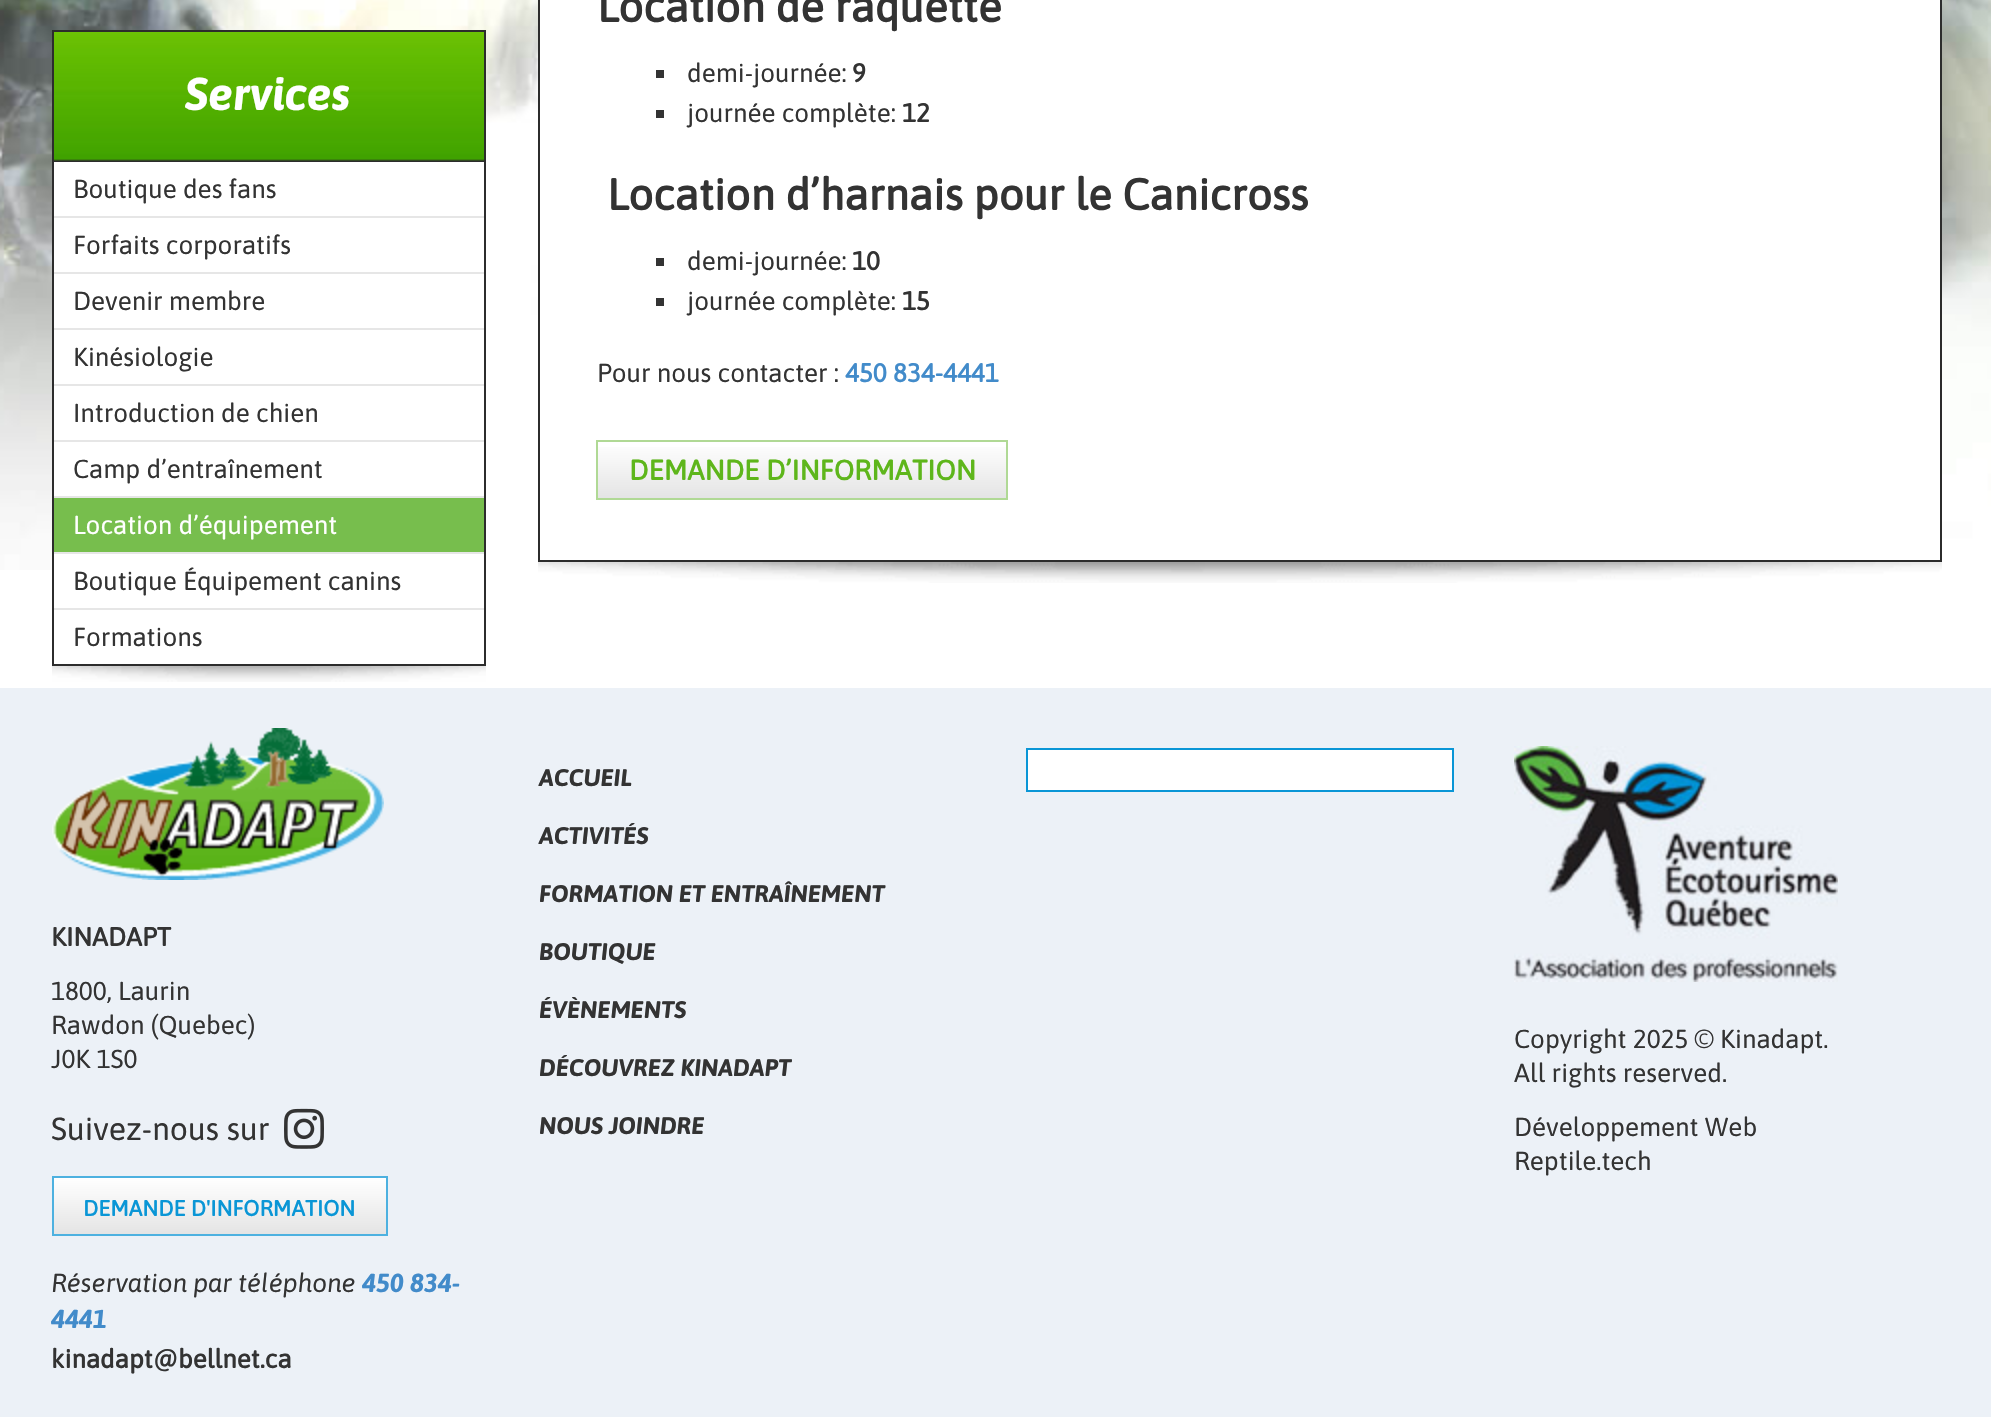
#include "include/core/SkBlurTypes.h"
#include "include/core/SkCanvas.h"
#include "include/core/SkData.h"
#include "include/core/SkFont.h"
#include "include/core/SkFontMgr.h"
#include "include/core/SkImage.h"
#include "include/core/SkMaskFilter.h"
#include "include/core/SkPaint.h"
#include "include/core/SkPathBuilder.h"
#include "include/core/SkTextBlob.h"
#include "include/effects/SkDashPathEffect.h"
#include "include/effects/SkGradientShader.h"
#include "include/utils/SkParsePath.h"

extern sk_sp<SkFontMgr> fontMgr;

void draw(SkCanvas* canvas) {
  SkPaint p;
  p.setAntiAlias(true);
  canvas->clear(SK_ColorWHITE);
  canvas->drawImageRect(SkImages::DeferredFromEncodedData(SkData::MakeFromFileName("images/1.png")), SkRect::MakeLTRB(0, 0, 1991, 570), SkSamplingOptions());
  p.setStyle(SkPaint::kStroke_Style);
  p.setStrokeWidth(2);
  p.setColor(SkColorSetRGB(44, 44, 44));
  canvas->drawRect(SkRect::MakeLTRB(53, 31, 485, 665), p);
  canvas->drawImageRect(SkImages::DeferredFromEncodedData(SkData::MakeFromFileName("images/2.png")), SkRect::MakeLTRB(54, 32, 484, 162), SkSamplingOptions());
  p.setStyle(SkPaint::kFill_Style);
  p.setColor(SK_ColorWHITE);
  canvas->drawRect(SkRect::MakeLTRB(54, 162, 437, 570), p);
  p.setColor(SkColorSetRGB(230, 230, 230));
  canvas->drawRect(SkRect::MakeLTRB(54, 216, 484, 218), p);
  canvas->drawRect(SkRect::MakeLTRB(54, 272, 484, 274), p);
  canvas->drawRect(SkRect::MakeLTRB(54, 328, 484, 330), p);
  canvas->drawRect(SkRect::MakeLTRB(54, 384, 484, 386), p);
  canvas->drawRect(SkRect::MakeLTRB(54, 440, 484, 442), p);
  p.setColor(SkColorSetRGB(119, 190, 77));
  canvas->drawRect(SkRect::MakeLTRB(54, 498, 484, 552), p);
  p.setColor(SkColorSetRGB(230, 230, 230));
  canvas->drawRect(SkRect::MakeLTRB(54, 496, 484, 498), p);
  canvas->drawRect(SkRect::MakeLTRB(54, 552, 484, 554), p);
  canvas->drawRect(SkRect::MakeLTRB(54, 608, 484, 610), p);
  canvas->drawImageRect(SkImages::DeferredFromEncodedData(SkData::MakeFromFileName("images/3.png")), SkRect::MakeLTRB(52, 666, 486, 682), SkSamplingOptions());
  p.setColor(SK_ColorWHITE);
  canvas->drawRect(SkRect::MakeLTRB(539, -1, 1941, 561), p);
  p.setStyle(SkPaint::kStroke_Style);
  p.setColor(SkColorSetRGB(44, 44, 44));
  canvas->drawRect(SkRect::MakeLTRB(539, -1, 1941, 561), p);
  p.setStyle(SkPaint::kFill_Style);
  p.setColor(SkColorSetRGB(51, 51, 51));
  canvas->drawRect(SkRect::MakeLTRB(656, 70, 664, 78), p);
  canvas->drawRect(SkRect::MakeLTRB(656, 110, 664, 118), p);
  canvas->drawRect(SkRect::MakeLTRB(656, 258, 664, 266), p);
  canvas->drawRect(SkRect::MakeLTRB(656, 298, 664, 306), p);
  {
    const SkColor colors[] = {SK_ColorWHITE, SkColorSetRGB(228, 228, 228)};
    const float stops[] = {0, 1};
    const SkPoint ends[] = {{802, 442}, {802, 498}};
    p.setShader(SkGradientShader::MakeLinear(ends, colors, stops, 2, SkTileMode::kClamp));
    p.setAlpha(255);
  }
  canvas->drawRect(SkRect::MakeLTRB(598, 447, 1006, 498), p);
  p.setStyle(SkPaint::kStroke_Style);
  p.setShader(nullptr);
  p.setColor(SkColorSetRGB(176, 217, 149));
  canvas->drawRect(SkRect::MakeLTRB(597, 441, 1007, 499), p);
  canvas->drawImageRect(SkImages::DeferredFromEncodedData(SkData::MakeFromFileName("images/4.png")), SkRect::MakeLTRB(538, 562, 1942, 583), SkSamplingOptions());
  p.setStyle(SkPaint::kFill_Style);
  p.setColor(SkColorSetRGB(236, 241, 247));
  canvas->drawRect(SkRect::MakeLTRB(0, 688, 1991, 1417), p);
  canvas->drawImageRect(SkImages::DeferredFromEncodedData(SkData::MakeFromFileName("images/5.png")), SkRect::MakeLTRB(52, 728, 384, 880), SkSamplingOptions());
  canvas->drawImageRect(SkImages::DeferredFromEncodedData(SkData::MakeFromFileName("images/6.png")), SkRect::MakeLTRB(284, 1108, 324, 1149), SkSamplingOptions());
  {
    const SkColor colors[] = {SK_ColorWHITE, SkColorSetRGB(228, 228, 228)};
    const float stops[] = {0, 1};
    const SkPoint ends[] = {{220, 1178}, {220, 1234}};
    p.setShader(SkGradientShader::MakeLinear(ends, colors, stops, 2, SkTileMode::kClamp));
    p.setAlpha(255);
  }
  canvas->drawRect(SkRect::MakeLTRB(54, 1178, 386, 1234), p);
  p.setStyle(SkPaint::kStroke_Style);
  p.setShader(nullptr);
  p.setColor(SkColorSetRGB(77, 177, 224));
  canvas->drawRect(SkRect::MakeLTRB(53, 1177, 387, 1235), p);
  p.setStyle(SkPaint::kFill_Style);
  p.setColor(SK_ColorWHITE);
  canvas->drawRect(SkRect::MakeLTRB(1027, 749, 1453, 791), p);
  p.setStyle(SkPaint::kStroke_Style);
  p.setColor(SkColorSetRGB(10, 150, 214));
  canvas->drawRect(SkRect::MakeLTRB(1027, 749, 1453, 791), p);
  canvas->drawImageRect(SkImages::DeferredFromEncodedData(SkData::MakeFromFileName("images/7.png")), SkRect::MakeLTRB(1514, 746, 1838, 982), SkSamplingOptions());
  SkFont font1(fontMgr->matchFamilyStyle("Asap", SkFontStyle::BoldItalic()), 46);
  font1.setSubpixel(true);
  p.setStyle(SkPaint::kFill_Style);
  p.setColor(SK_ColorWHITE);
  canvas->drawString("Services", 185, 110, font1, p);
  SkFont font2(fontMgr->matchFamilyStyle("Asap", SkFontStyle::Normal()), 26);
  font2.setSubpixel(true);
  p.setColor(SkColorSetRGB(51, 51, 51));
  canvas->drawString("Boutique des fans", 73, 198, font2, p);
  canvas->drawString("Forfaits corporatifs", 73, 254, font2, p);
  canvas->drawString("Devenir membre", 73, 310, font2, p);
  canvas->drawString("Kinésiologie", 73, 366, font2, p);
  canvas->drawString("Introduction de chien", 73, 422, font2, p);
  canvas->drawString("Camp d’entraînement", 73, 478, font2, p);
  p.setColor(SK_ColorWHITE);
  canvas->drawString("Location d’équipement", 73, 534, font2, p);
  p.setColor(SkColorSetRGB(51, 51, 51));
  canvas->drawString("Boutique Équipement canins", 73, 590, font2, p);
  canvas->drawString("Formations", 73, 646, font2, p);
  SkFont font3(fontMgr->matchFamilyStyle("Asap", SkFontStyle::Bold()), 44);
  font3.setSubpixel(true);
  canvas->drawString("Location de raquette", 597, 22, font3, p);
  canvas->drawString("demi-journée:", 687, 82, font2, p);
  SkFont font4(fontMgr->matchFamilyStyle("Asap", SkFontStyle::Bold()), 26);
  font4.setSubpixel(true);
  canvas->drawString("9", 852, 82, font4, p);
  canvas->drawString("journée complète:", 687, 122, font2, p);
  canvas->drawString("12", 902, 122, font4, p);
  canvas->drawString("Location d’harnais pour le Canicross", 607, 210, font3, p);
  canvas->drawString("demi-journée:", 687, 270, font2, p);
  canvas->drawString("10", 852, 270, font4, p);
  canvas->drawString("journée complète:", 687, 310, font2, p);
  canvas->drawString("15", 902, 310, font4, p);
  canvas->drawString("Pour nous contacter :", 597, 382, font2, p);
  p.setColor(SkColorSetRGB(66, 139, 202));
  canvas->drawString("450 834-4441", 845, 382, font4, p);
  SkFont font5(fontMgr->matchFamilyStyle("Asap", SkFontStyle::Bold()), 28);
  font5.setSubpixel(true);
  p.setColor(SkColorSetRGB(94, 182, 27));
  canvas->drawString("DEMANDE D’INFORMATION", 629, 480, font5, p);
  p.setColor(SkColorSetRGB(51, 51, 51));
  canvas->drawString("KINADAPT", 51, 946, font4, p);
  canvas->drawString("1800, Laurin", 51, 1000, font2, p);
  canvas->drawString("Rawdon (Quebec)", 51, 1034, font2, p);
  canvas->drawString("J0K 1S0", 51, 1068, font2, p);
  SkFont font6(fontMgr->matchFamilyStyle("Asap", SkFontStyle::Normal()), 32);
  font6.setSubpixel(true);
  canvas->drawString("Suivez-nous sur", 51, 1140, font6, p);
  SkFont font7(fontMgr->matchFamilyStyle("Asap", SkFontStyle::Bold()), 22);
  font7.setSubpixel(true);
  p.setColor(SkColorSetRGB(10, 150, 214));
  canvas->drawString("DEMANDE D'INFORMATION", 83, 1216, font7, p);
  SkFont font8(fontMgr->matchFamilyStyle("Asap", SkFontStyle::Italic()), 26);
  font8.setSubpixel(true);
  p.setColor(SkColorSetRGB(51, 51, 51));
  canvas->drawString("Réservation par téléphone", 51, 1292, font8, p);
  SkFont font9(fontMgr->matchFamilyStyle("Asap", SkFontStyle::BoldItalic()), 26);
  font9.setSubpixel(true);
  p.setColor(SkColorSetRGB(66, 139, 202));
  canvas->drawString("450 834-", 362, 1292, font9, p);
  canvas->drawString("4441", 51, 1328, font9, p);
  p.setColor(SkColorSetRGB(51, 51, 51));
  canvas->drawString("kinadapt@bellnet.ca", 51, 1368, font4, p);
  SkFont font10(fontMgr->matchFamilyStyle("Asap", SkFontStyle::BoldItalic()), 24);
  font10.setSubpixel(true);
  canvas->drawString("ACCUEIL", 539, 786, font10, p);
  canvas->drawString("ACTIVITÉS", 539, 844, font10, p);
  canvas->drawString("FORMATION ET ENTRAÎNEMENT", 539, 902, font10, p);
  canvas->drawString("BOUTIQUE", 539, 960, font10, p);
  canvas->drawString("ÉVÈNEMENTS", 539, 1018, font10, p);
  canvas->drawString("DÉCOUVREZ KINADAPT", 539, 1076, font10, p);
  canvas->drawString("NOUS JOINDRE", 539, 1134, font10, p);
  canvas->drawString("Copyright 2025 © Kinadapt.", 1514, 1048, font2, p);
  canvas->drawString("All rights reserved.", 1514, 1082, font2, p);
  canvas->drawString("Développement Web", 1514, 1136, font2, p);
  canvas->drawString("Reptile.tech", 1514, 1170, font2, p);
}
